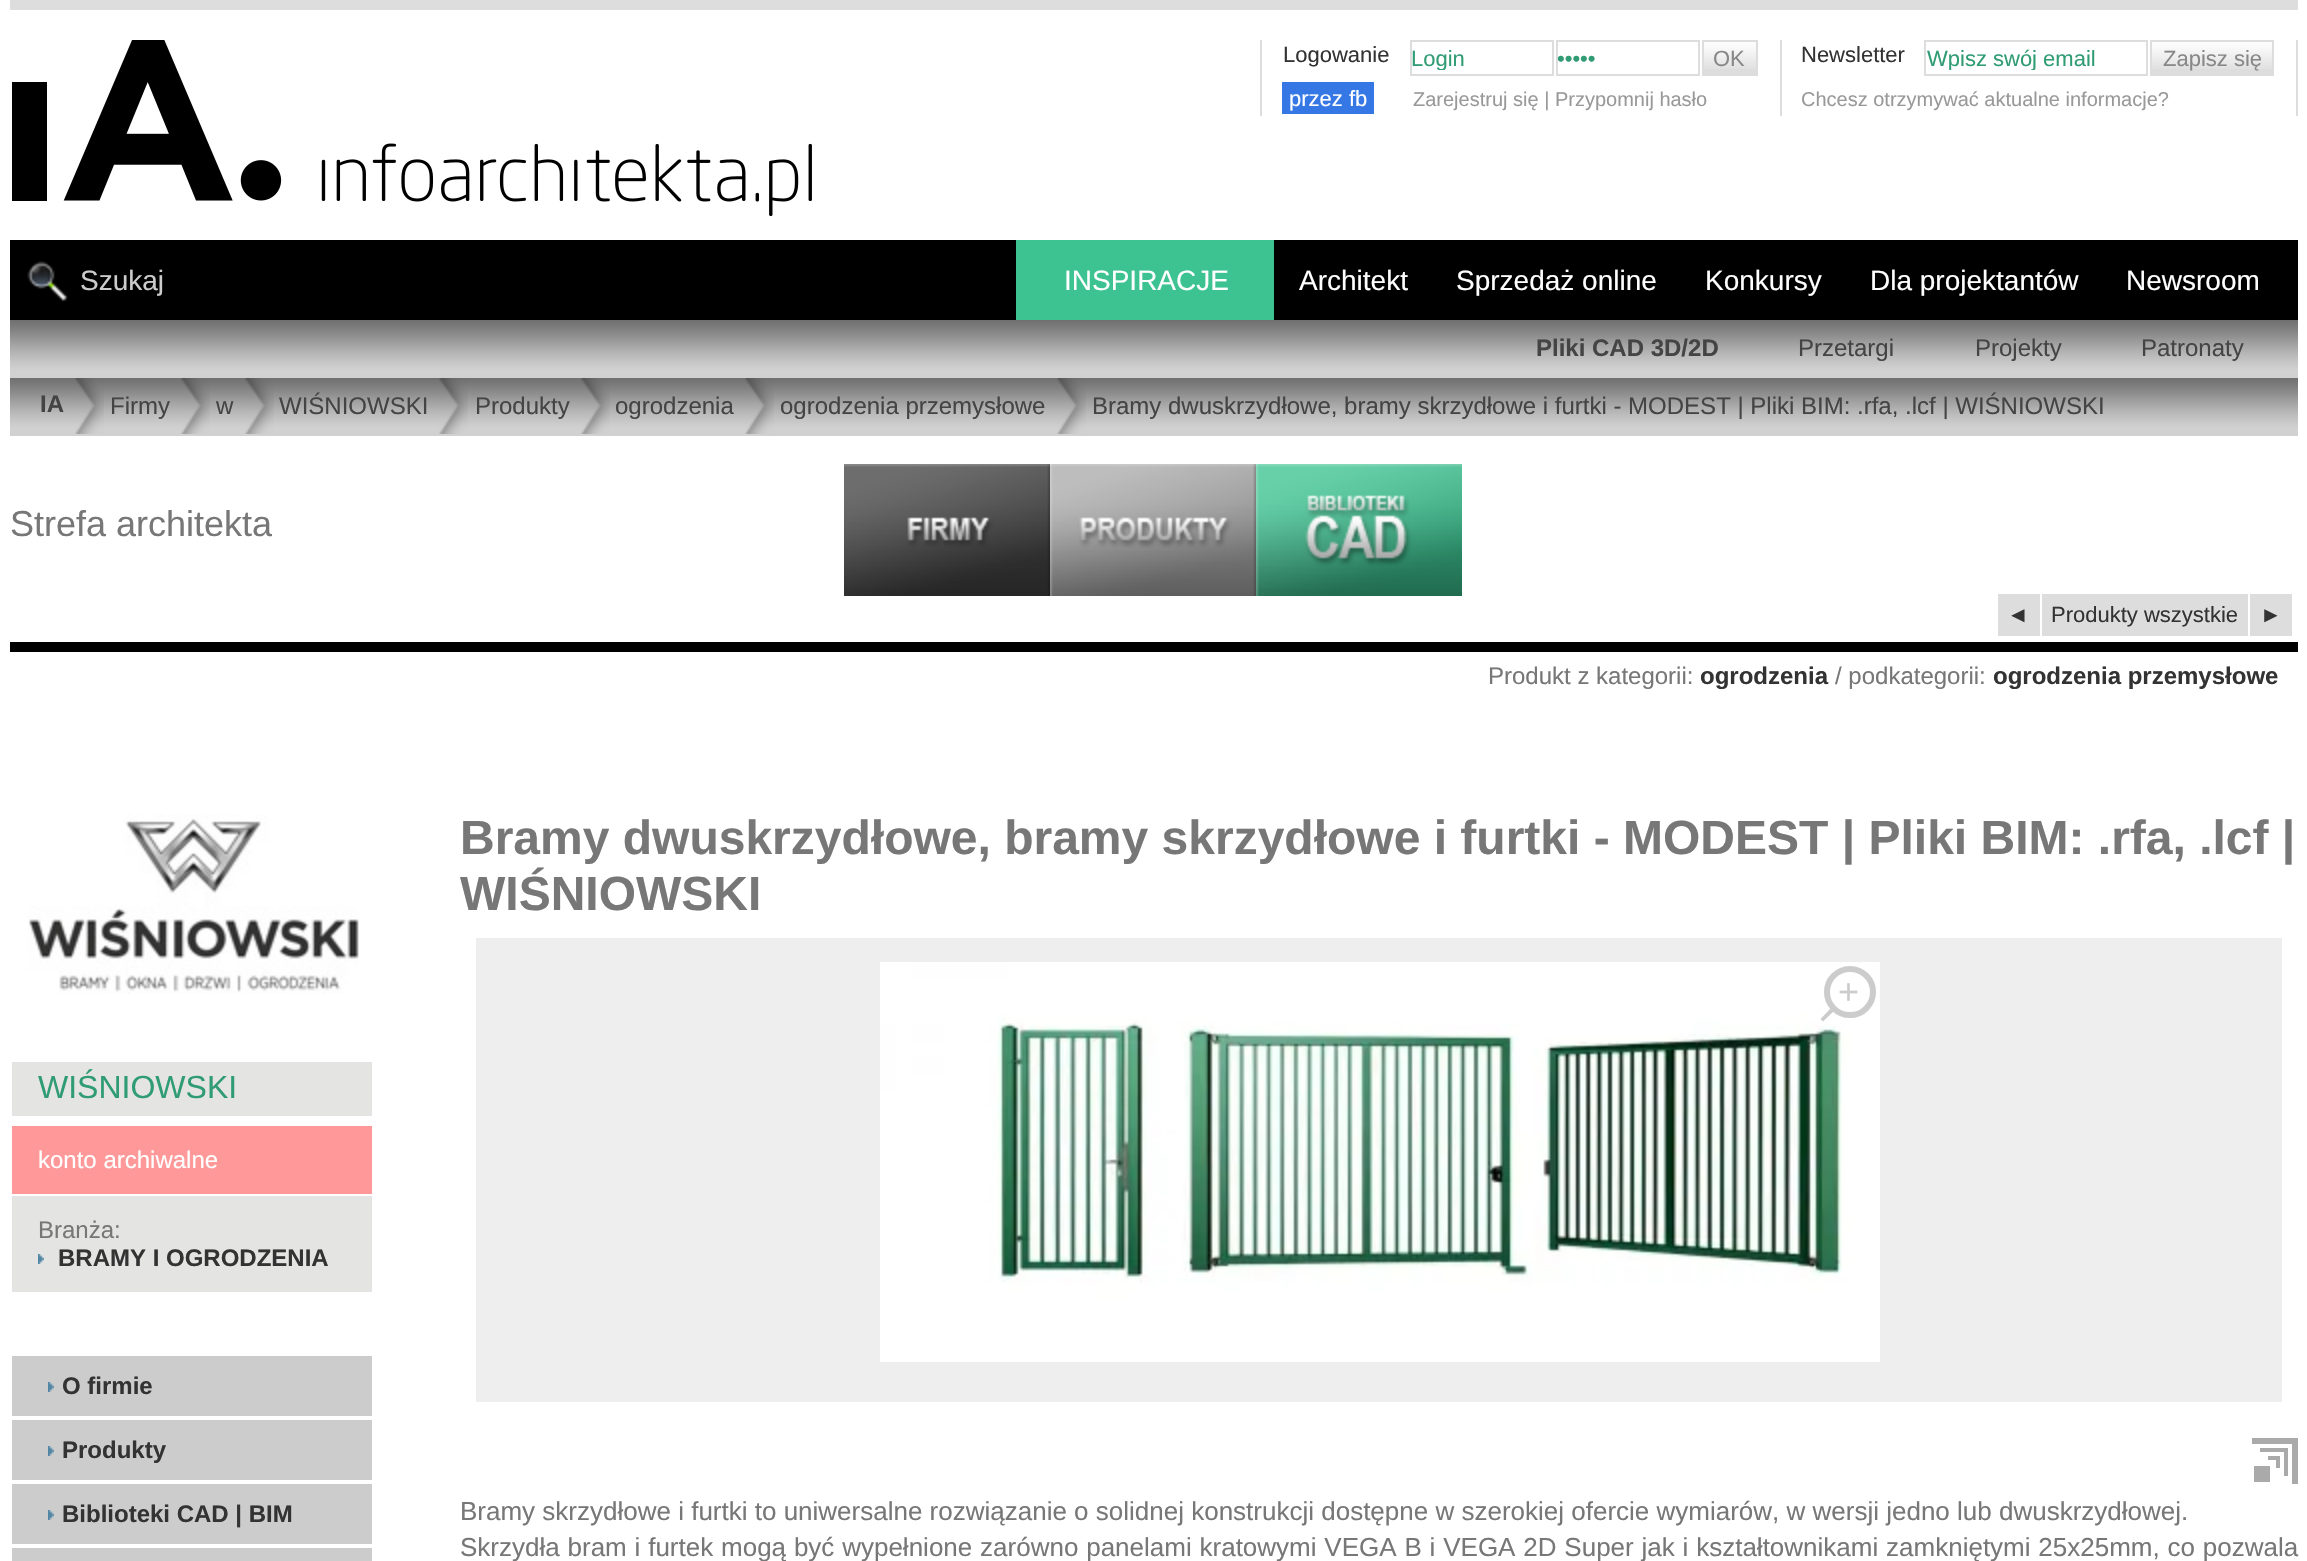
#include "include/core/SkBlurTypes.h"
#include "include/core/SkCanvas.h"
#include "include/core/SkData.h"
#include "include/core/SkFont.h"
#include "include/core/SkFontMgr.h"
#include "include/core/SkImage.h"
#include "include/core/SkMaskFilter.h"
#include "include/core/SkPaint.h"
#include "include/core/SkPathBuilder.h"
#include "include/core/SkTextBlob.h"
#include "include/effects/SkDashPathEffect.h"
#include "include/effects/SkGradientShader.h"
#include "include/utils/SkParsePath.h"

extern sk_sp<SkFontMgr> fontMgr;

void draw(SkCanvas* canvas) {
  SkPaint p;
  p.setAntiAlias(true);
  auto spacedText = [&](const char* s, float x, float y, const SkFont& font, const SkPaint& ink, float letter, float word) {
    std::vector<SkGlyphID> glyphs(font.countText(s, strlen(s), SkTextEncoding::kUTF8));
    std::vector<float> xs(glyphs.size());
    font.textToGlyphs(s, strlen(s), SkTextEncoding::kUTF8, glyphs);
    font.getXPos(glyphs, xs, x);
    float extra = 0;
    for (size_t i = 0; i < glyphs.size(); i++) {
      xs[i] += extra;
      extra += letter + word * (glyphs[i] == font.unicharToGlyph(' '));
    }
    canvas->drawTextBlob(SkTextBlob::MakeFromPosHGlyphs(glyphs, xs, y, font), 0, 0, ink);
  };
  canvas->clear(SK_ColorWHITE);
  p.setColor(SkColorSetRGB(221, 221, 221));
  canvas->drawRect(SkRect::MakeLTRB(10, 0, 2298, 10), p);
  canvas->drawImageRect(SkImages::DeferredFromEncodedData(SkData::MakeFromFileName("images/1.png")), SkRect::MakeLTRB(12, 40, 812, 216), SkSamplingOptions());
  canvas->drawRect(SkRect::MakeLTRB(1260, 40, 1262, 116), p);
  canvas->drawRect(SkRect::MakeLTRB(1780, 40, 1782, 116), p);
  p.setStyle(SkPaint::kStroke_Style);
  p.setStrokeWidth(2);
  canvas->drawRect(SkRect::MakeLTRB(1411, 41, 1553, 75), p);
  canvas->drawRect(SkRect::MakeLTRB(1557, 41, 1699, 75), p);
  p.setStyle(SkPaint::kFill_Style);
  canvas->drawRect(SkRect::MakeLTRB(1704, 42, 1756, 74), p);
  canvas->drawImageRect(SkImages::DeferredFromEncodedData(SkData::MakeFromFileName("images/2.png")), SkRect::MakeLTRB(1704, 42, 1756, 69), SkSamplingOptions());
  p.setStyle(SkPaint::kStroke_Style);
  canvas->drawRect(SkRect::MakeLTRB(1703, 41, 1757, 75), p);
  p.setStyle(SkPaint::kFill_Style);
  p.setColor(SkColorSetRGB(53, 120, 229));
  canvas->drawRect(SkRect::MakeLTRB(1282, 82, 1374, 114), p);
  p.setColor(SkColorSetRGB(221, 221, 221));
  canvas->drawRect(SkRect::MakeLTRB(2296, 40, 2298, 116), p);
  p.setStyle(SkPaint::kStroke_Style);
  canvas->drawRect(SkRect::MakeLTRB(1925, 41, 2147, 75), p);
  p.setStyle(SkPaint::kFill_Style);
  canvas->drawRect(SkRect::MakeLTRB(2152, 42, 2272, 74), p);
  canvas->drawImageRect(SkImages::DeferredFromEncodedData(SkData::MakeFromFileName("images/3.png")), SkRect::MakeLTRB(2152, 42, 2272, 69), SkSamplingOptions());
  p.setStyle(SkPaint::kStroke_Style);
  canvas->drawRect(SkRect::MakeLTRB(2151, 41, 2273, 75), p);
  p.setStyle(SkPaint::kFill_Style);
  p.setColor(SK_ColorBLACK);
  canvas->drawRect(SkRect::MakeLTRB(10, 240, 2298, 320), p);
  canvas->drawImageRect(SkImages::DeferredFromEncodedData(SkData::MakeFromFileName("images/4.png")), SkRect::MakeLTRB(27, 261, 68, 302), SkSamplingOptions());
  p.setColor(SkColorSetRGB(60, 195, 145));
  canvas->drawRect(SkRect::MakeLTRB(1016, 240, 1274, 320), p);
  canvas->drawImageRect(SkImages::DeferredFromEncodedData(SkData::MakeFromFileName("images/5.png")), SkRect::MakeLTRB(10, 320, 2298, 378), SkSamplingOptions());
  canvas->drawImageRect(SkImages::DeferredFromEncodedData(SkData::MakeFromFileName("images/5.png")), SkRect::MakeLTRB(10, 378, 2298, 436), SkSamplingOptions());
  canvas->drawImageRect(SkImages::DeferredFromEncodedData(SkData::MakeFromFileName("images/6.png")), SkRect::MakeLTRB(75, 378, 104, 434), SkSamplingOptions());
  canvas->drawImageRect(SkImages::DeferredFromEncodedData(SkData::MakeFromFileName("images/6.png")), SkRect::MakeLTRB(181, 378, 210, 434), SkSamplingOptions());
  canvas->drawImageRect(SkImages::DeferredFromEncodedData(SkData::MakeFromFileName("images/6.png")), SkRect::MakeLTRB(245, 378, 274, 434), SkSamplingOptions());
  canvas->drawImageRect(SkImages::DeferredFromEncodedData(SkData::MakeFromFileName("images/6.png")), SkRect::MakeLTRB(439, 378, 468, 434), SkSamplingOptions());
  canvas->drawImageRect(SkImages::DeferredFromEncodedData(SkData::MakeFromFileName("images/6.png")), SkRect::MakeLTRB(581, 378, 610, 434), SkSamplingOptions());
  canvas->drawImageRect(SkImages::DeferredFromEncodedData(SkData::MakeFromFileName("images/6.png")), SkRect::MakeLTRB(745, 378, 774, 434), SkSamplingOptions());
  canvas->drawImageRect(SkImages::DeferredFromEncodedData(SkData::MakeFromFileName("images/6.png")), SkRect::MakeLTRB(1057, 378, 1086, 434), SkSamplingOptions());
  p.setColor(SkColorSetRGB(68, 68, 68));
  canvas->drawRect(SkRect::MakeLTRB(844, 464, 1050, 596), p);
  canvas->drawImageRect(SkImages::DeferredFromEncodedData(SkData::MakeFromFileName("images/7.png")), SkRect::MakeLTRB(844, 464, 1050, 596), SkSamplingOptions());
  p.setColor(SkColorSetRGB(170, 170, 170));
  canvas->drawRect(SkRect::MakeLTRB(1050, 464, 1256, 596), p);
  canvas->drawImageRect(SkImages::DeferredFromEncodedData(SkData::MakeFromFileName("images/8.png")), SkRect::MakeLTRB(1050, 464, 1256, 596), SkSamplingOptions());
  p.setColor(SkColorSetRGB(60, 195, 145));
  canvas->drawRect(SkRect::MakeLTRB(1256, 464, 1462, 596), p);
  canvas->drawImageRect(SkImages::DeferredFromEncodedData(SkData::MakeFromFileName("images/9.png")), SkRect::MakeLTRB(1256, 464, 1462, 596), SkSamplingOptions());
  p.setColor(SkColorSetRGB(221, 221, 221));
  canvas->drawRect(SkRect::MakeLTRB(1998, 594, 2040, 636), p);
  canvas->drawRect(SkRect::MakeLTRB(2042, 594, 2248, 636), p);
  canvas->drawRect(SkRect::MakeLTRB(2250, 594, 2292, 636), p);
  p.setColor(SkColorSetRGB(238, 238, 238));
  canvas->drawRect(SkRect::MakeLTRB(476, 938, 2282, 1402), p);
  canvas->drawImageRect(SkImages::DeferredFromEncodedData(SkData::MakeFromFileName("images/10.png")), SkRect::MakeLTRB(880, 962, 1880, 1362), SkSamplingOptions());
  p.setStyle(SkPaint::kStroke_Style);
  p.setStrokeWidth(6);
  p.setColor(SkColorSetRGB(204, 204, 204));
  canvas->drawCircle(1850, 992, 23, p);
  p.setStyle(SkPaint::kFill_Style);
  canvas->drawPath(SkPathBuilder().moveTo(1820.5f, 1019).lineTo(1831.5f, 1007.5f).lineTo(1834.5f, 1010.5f).lineTo(1823, 1021.5f).close().detach(), p);
  p.setColor(SkColorSetRGB(170, 170, 170));
  canvas->drawRect(SkRect::MakeLTRB(2252, 1438, 2298, 1444), p);
  canvas->drawRect(SkRect::MakeLTRB(2292, 1438, 2298, 1484), p);
  canvas->drawRect(SkRect::MakeLTRB(2260, 1448, 2288, 1452), p);
  canvas->drawRect(SkRect::MakeLTRB(2284, 1448, 2288, 1476), p);
  canvas->drawRect(SkRect::MakeLTRB(2268, 1456, 2280, 1460), p);
  canvas->drawRect(SkRect::MakeLTRB(2276, 1456, 2280, 1468), p);
  canvas->drawRect(SkRect::MakeLTRB(2254, 1466, 2270, 1482), p);
  p.setColor(SK_ColorBLACK);
  canvas->drawRect(SkRect::MakeLTRB(10, 642, 2298, 652), p);
  canvas->drawImageRect(SkImages::DeferredFromEncodedData(SkData::MakeFromFileName("images/11.png")), SkRect::MakeLTRB(28, 814, 359, 994), SkSamplingOptions());
  p.setColor(SkColorSetRGB(228, 228, 227));
  canvas->drawRect(SkRect::MakeLTRB(12, 1062, 372, 1116), p);
  p.setColor(SkColorSetRGB(255, 153, 153));
  canvas->drawRect(SkRect::MakeLTRB(12, 1126, 372, 1194), p);
  p.setColor(SkColorSetRGB(228, 228, 227));
  canvas->drawRect(SkRect::MakeLTRB(12, 1196, 372, 1292), p);
  canvas->drawImageRect(SkImages::DeferredFromEncodedData(SkData::MakeFromFileName("images/12.png")), SkRect::MakeLTRB(38, 1254, 44, 1264), SkSamplingOptions());
  p.setColor(SkColorSetRGB(204, 204, 204));
  canvas->drawRect(SkRect::MakeLTRB(12, 1356, 372, 1416), p);
  canvas->drawImageRect(SkImages::DeferredFromEncodedData(SkData::MakeFromFileName("images/13.png")), SkRect::MakeLTRB(48, 1382, 54, 1392), SkSamplingOptions());
  canvas->drawRect(SkRect::MakeLTRB(12, 1420, 372, 1480), p);
  canvas->drawImageRect(SkImages::DeferredFromEncodedData(SkData::MakeFromFileName("images/13.png")), SkRect::MakeLTRB(48, 1446, 54, 1456), SkSamplingOptions());
  canvas->drawRect(SkRect::MakeLTRB(12, 1484, 372, 1544), p);
  canvas->drawImageRect(SkImages::DeferredFromEncodedData(SkData::MakeFromFileName("images/13.png")), SkRect::MakeLTRB(48, 1510, 54, 1520), SkSamplingOptions());
  canvas->drawRect(SkRect::MakeLTRB(12, 1548, 372, 1561), p);
  SkFont font1(fontMgr->matchFamilyStyle("Liberation Sans", SkFontStyle::Normal()), 22);
  font1.setSubpixel(true);
  p.setColor(SkColorSetRGB(51, 51, 51));
  canvas->drawString("Logowanie", 1283, 62, font1, p);
  canvas->save();
  canvas->clipRect(SkRect::MakeLTRB(1412, 46, 1552, 70));
  p.setColor(SkColorSetRGB(48, 156, 116));
  canvas->drawString("Login", 1411, 66, font1, p);
  canvas->restore();
  canvas->drawString("•••••", 1557, 66, font1, p);
  p.setColor(SkColorSetRGB(136, 136, 136));
  canvas->drawString("OK", 1713, 66, font1, p);
  p.setColor(SK_ColorWHITE);
  canvas->drawString("przez fb", 1289, 106, font1, p);
  SkFont font2(fontMgr->matchFamilyStyle("Liberation Sans", SkFontStyle::Normal()), 20);
  font2.setSubpixel(true);
  p.setColor(SkColorSetRGB(153, 153, 153));
  canvas->drawString("Zarejestruj się | Przypomnij hasło", 1413, 106, font2, p);
  p.setColor(SkColorSetRGB(51, 51, 51));
  canvas->drawString("Newsletter", 1801, 62, font1, p);
  canvas->save();
  canvas->clipRect(SkRect::MakeLTRB(1926, 46, 2146, 70));
  p.setColor(SkColorSetRGB(48, 156, 116));
  canvas->drawString("Wpisz swój email", 1927, 66, font1, p);
  canvas->restore();
  p.setColor(SkColorSetRGB(136, 136, 136));
  canvas->drawString("Zapisz się", 2163, 66, font1, p);
  p.setColor(SkColorSetRGB(153, 153, 153));
  canvas->drawString("Chcesz otrzymywać aktualne informacje?", 1801, 106, font2, p);
  SkFont font3(fontMgr->matchFamilyStyle("Liberation Sans", SkFontStyle::Normal()), 28);
  font3.setSubpixel(true);
  p.setColor(SkColorSetRGB(204, 204, 204));
  canvas->drawString("Szukaj", 80, 290, font3, p);
  p.setColor(SK_ColorWHITE);
  canvas->drawString("INSPIRACJE", 1064, 290, font3, p);
  canvas->drawString("Architekt", 1299, 290, font3, p);
  canvas->drawString("Sprzedaż online", 1456, 290, font3, p);
  canvas->drawString("Konkursy", 1705, 290, font3, p);
  canvas->drawString("Dla projektantów", 1870, 290, font3, p);
  canvas->drawString("Newsroom", 2126, 290, font3, p);
  SkFont font4(fontMgr->matchFamilyStyle("Liberation Sans", SkFontStyle::Bold()), 24);
  font4.setSubpixel(true);
  p.setColor(SkColorSetRGB(68, 68, 68));
  canvas->drawString("Pliki CAD 3D/2D", 1536, 356, font4, p);
  SkFont font5(fontMgr->matchFamilyStyle("Liberation Sans", SkFontStyle::Normal()), 24);
  font5.setSubpixel(true);
  canvas->drawString("Przetargi", 1798, 356, font5, p);
  canvas->drawString("Projekty", 1975, 356, font5, p);
  canvas->drawString("Patronaty", 2141, 356, font5, p);
  canvas->drawString("IA", 40, 412, font4, p);
  canvas->drawString("Firmy", 110, 414, font5, p);
  canvas->drawString("w", 216, 414, font5, p);
  canvas->drawString("WIŚNIOWSKI", 279, 414, font5, p);
  canvas->drawString("Produkty", 475, 414, font5, p);
  canvas->drawString("ogrodzenia", 615, 414, font5, p);
  canvas->drawString("ogrodzenia przemysłowe", 780, 414, font5, p);
  canvas->drawString("Bramy dwuskrzydłowe, bramy skrzydłowe i furtki - MODEST | Pliki BIM: .rfa, .lcf | WIŚNIOWSKI", 1092, 414, font5, p);
  SkFont font6(fontMgr->matchFamilyStyle("Liberation Sans", SkFontStyle::Normal()), 36);
  font6.setSubpixel(true);
  p.setColor(SkColorSetRGB(119, 119, 119));
  canvas->drawString("Strefa architekta", 10, 536, font6, p);
  p.setColor(SkColorSetRGB(51, 51, 51));
  canvas->drawString("◄", 2007, 622, font1, p);
  canvas->drawString("Produkty wszystkie", 2051, 622, font1, p);
  canvas->drawString("►", 2260, 622, font1, p);
  p.setColor(SkColorSetRGB(119, 119, 119));
  canvas->drawString("Produkt z kategorii:", 1488, 684, font5, p);
  p.setColor(SkColorSetRGB(51, 51, 51));
  canvas->drawString("ogrodzenia", 1700, 684, font4, p);
  p.setColor(SkColorSetRGB(119, 119, 119));
  canvas->drawString("/ podkategorii:", 1835, 684, font5, p);
  p.setColor(SkColorSetRGB(51, 51, 51));
  canvas->drawString("ogrodzenia przemysłowe", 1993, 684, font4, p);
  SkFont font7(fontMgr->matchFamilyStyle("Liberation Sans", SkFontStyle::Bold()), 48);
  font7.setSubpixel(true);
  p.setColor(SkColorSetRGB(119, 119, 119));
  canvas->drawString("Bramy dwuskrzydłowe, bramy skrzydłowe i furtki - MODEST | Pliki BIM: .rfa, .lcf |", 460, 854, font7, p);
  canvas->drawString("WIŚNIOWSKI", 460, 910, font7, p);
  p.setColor(SkColorSetRGB(204, 204, 204));
  canvas->drawString("+", 1838, 1004, font6, p);
  SkFont font8(fontMgr->matchFamilyStyle("Liberation Sans", SkFontStyle::Normal()), 26);
  font8.setSubpixel(true);
  p.setColor(SkColorSetRGB(119, 119, 119));
  canvas->drawString("Bramy skrzydłowe i furtki to uniwersalne rozwiązanie o solidnej konstrukcji dostępne w szerokiej ofercie wymiarów, w wersji jedno lub dwuskrzydłowej.", 460, 1520, font8, p);
  spacedText("Skrzydła bram i furtek mogą być wypełnione zarówno panelami kratowymi VEGA B i VEGA 2D Super jak i kształtownikami zamkniętymi 25x25mm, co pozwala", 460, 1556, font8, p, 0, 0.6f);
  SkFont font9(fontMgr->matchFamilyStyle("Liberation Sans", SkFontStyle::Normal()), 32);
  font9.setSubpixel(true);
  p.setColor(SkColorSetRGB(48, 156, 116));
  canvas->drawString("WIŚNIOWSKI", 38, 1098, font9, p);
  p.setColor(SK_ColorWHITE);
  canvas->drawString("konto archiwalne", 38, 1168, font5, p);
  p.setColor(SkColorSetRGB(119, 119, 119));
  canvas->drawString("Branża:", 38, 1238, font5, p);
  p.setColor(SkColorSetRGB(51, 51, 51));
  canvas->drawString("BRAMY I OGRODZENIA", 58, 1266, font4, p);
  canvas->drawString("O firmie", 62, 1394, font4, p);
  canvas->drawString("Produkty", 62, 1458, font4, p);
  canvas->drawString("Biblioteki CAD | BIM", 62, 1522, font4, p);
}
